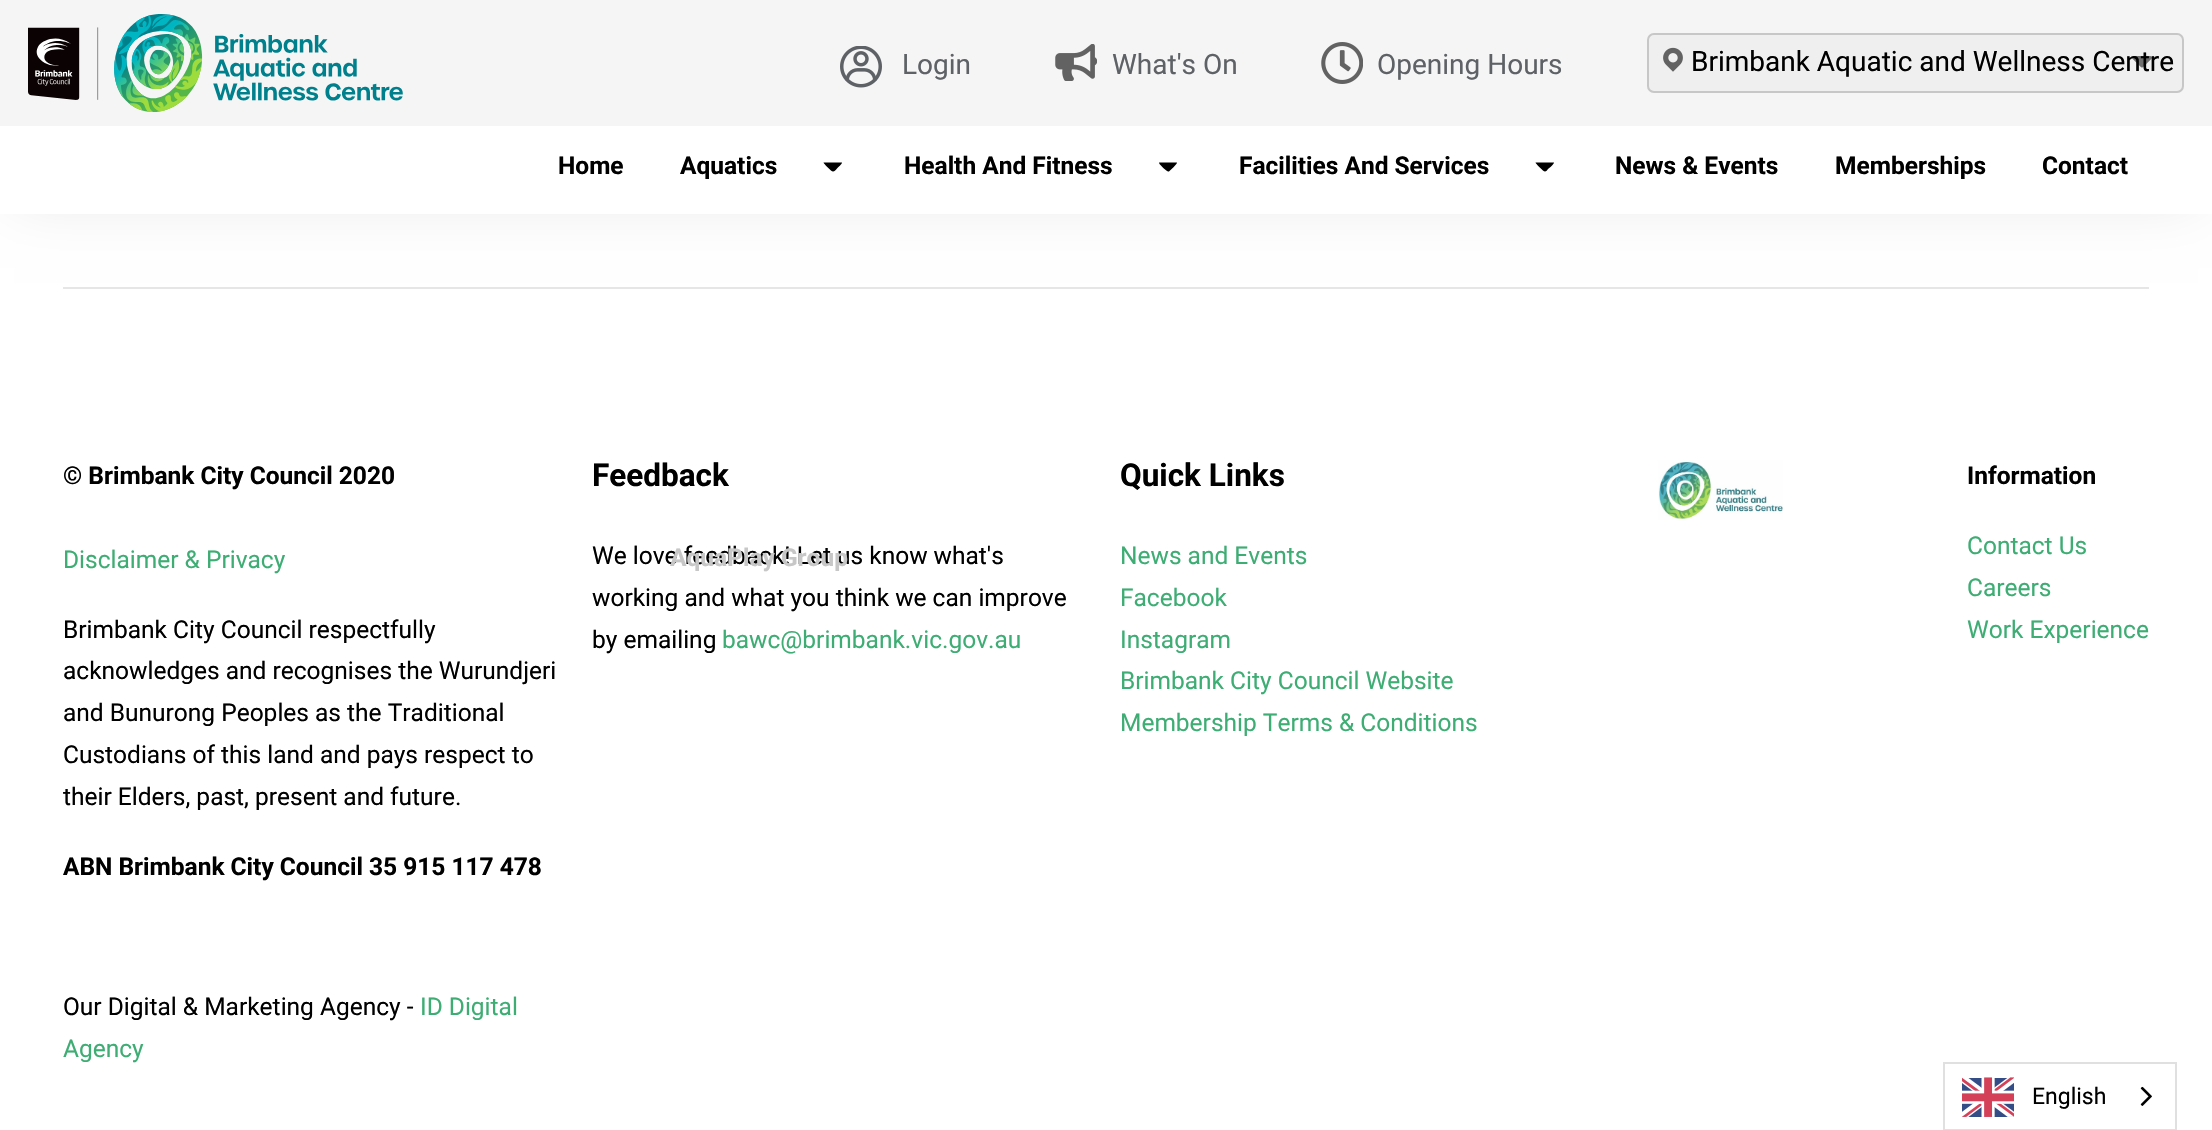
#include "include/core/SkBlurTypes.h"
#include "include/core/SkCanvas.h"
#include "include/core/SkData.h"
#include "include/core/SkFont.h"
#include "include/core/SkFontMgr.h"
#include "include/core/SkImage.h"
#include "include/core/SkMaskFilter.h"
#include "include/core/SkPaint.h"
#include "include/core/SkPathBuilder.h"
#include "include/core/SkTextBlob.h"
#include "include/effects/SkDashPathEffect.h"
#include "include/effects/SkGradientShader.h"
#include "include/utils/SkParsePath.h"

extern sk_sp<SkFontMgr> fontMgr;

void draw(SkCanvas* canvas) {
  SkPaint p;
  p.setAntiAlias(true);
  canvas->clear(SK_ColorWHITE);
  p.setColor(SkColorSetARGB(26, 0, 0, 0));
  p.setMaskFilter(SkMaskFilter::MakeBlur(kNormal_SkBlurStyle, 28));
  canvas->drawRect(SkRect::MakeLTRB(14, 14, 2198, 200), p);
  p.setMaskFilter(nullptr);
  p.setColor(SK_ColorWHITE);
  canvas->drawRect(SkRect::MakeLTRB(0, 126, 2212, 214), p);
  p.setColor(SkColorSetRGB(245, 245, 245));
  canvas->drawRect(SkRect::MakeLTRB(0, 0, 2212, 126), p);
  canvas->drawImageRect(SkImages::DeferredFromEncodedData(SkData::MakeFromFileName("images/1.png")), SkRect::MakeLTRB(28, 14, 403, 112), SkSamplingOptions());
  canvas->drawImageRect(SkImages::DeferredFromEncodedData(SkData::MakeFromFileName("images/2.png")), SkRect::MakeLTRB(840, 46, 882, 88), SkSamplingOptions());
  canvas->drawImageRect(SkImages::DeferredFromEncodedData(SkData::MakeFromFileName("images/3.png")), SkRect::MakeLTRB(1055, 44, 1097, 81), SkSamplingOptions());
  canvas->drawImageRect(SkImages::DeferredFromEncodedData(SkData::MakeFromFileName("images/4.png")), SkRect::MakeLTRB(1321, 42, 1363, 84), SkSamplingOptions());
  p.setColor(SkColorSetRGB(239, 239, 239));
  canvas->drawRoundRect(SkRect::MakeLTRB(1647, 33, 2184, 93), 7, 7, p);
  canvas->drawImageRect(SkImages::DeferredFromEncodedData(SkData::MakeFromFileName("images/5.png")), SkRect::MakeLTRB(2132, 56, 2152, 68), SkSamplingOptions());
  canvas->drawImageRect(SkImages::DeferredFromEncodedData(SkData::MakeFromFileName("images/6.png")), SkRect::MakeLTRB(1663, 47, 1683, 72), SkSamplingOptions());
  p.setStyle(SkPaint::kStroke_Style);
  p.setStrokeWidth(2);
  p.setColor(SkColorSetRGB(199, 199, 199));
  canvas->drawRoundRect(SkRect::MakeLTRB(1648, 34, 2183, 92), 6, 6, p);
  p.setStyle(SkPaint::kFill_Style);
  p.setColor(SK_ColorBLACK);
  canvas->drawPath(SkPathBuilder().moveTo(837, 168.5f).cubicTo(836, 169.5f, 834.5f, 171.5f, 833, 171.5f).lineTo(833, 162.5f).lineTo(842, 162.5f).cubicTo(842, 164, 838, 167.5f, 837, 168.5f).close().moveTo(824, 163.5f).lineTo(823.5f, 162.5f).lineTo(833, 162.5f).lineTo(833, 171.5f).cubicTo(831, 171.5f, 825.5f, 165, 824, 163.5f).close().detach(), p);
  canvas->drawPath(SkPathBuilder().moveTo(1169, 171.5f).lineTo(1168, 171.5f).lineTo(1168, 162.5f).lineTo(1177, 162.5f).cubicTo(1177, 164.5f, 1170.5f, 170, 1169, 171.5f).close().moveTo(1159.5f, 164).lineTo(1159, 162.5f).lineTo(1168, 162.5f).lineTo(1168, 171.5f).cubicTo(1166, 171, 1161, 165.5f, 1159.5f, 164).close().detach(), p);
  canvas->drawPath(SkPathBuilder().moveTo(1548, 169).cubicTo(1547.5f, 170, 1546, 171.5f, 1545, 171.5f).lineTo(1545, 162.5f).lineTo(1554, 162.5f).cubicTo(1554, 164, 1549.5f, 168, 1548, 169).close().moveTo(1536, 163.5f).lineTo(1535.5f, 162.5f).lineTo(1545, 162.5f).lineTo(1545, 171.5f).cubicTo(1543, 171.5f, 1537.5f, 165, 1536, 163.5f).close().detach(), p);
  p.setColor(SkColorSetRGB(230, 230, 230));
  canvas->drawRect(SkRect::MakeLTRB(63, 287, 2149, 289), p);
  canvas->drawImageRect(SkImages::DeferredFromEncodedData(SkData::MakeFromFileName("images/7.png")), SkRect::MakeLTRB(1658, 460, 1783, 520), SkSamplingOptions());
  p.setStyle(SkPaint::kStroke_Style);
  p.setColor(SkColorSetRGB(224, 224, 224));
  canvas->drawRect(SkRect::MakeLTRB(1944, 1063, 2176, 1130), p);
  canvas->drawImageRect(SkImages::DeferredFromEncodedData(SkData::MakeFromFileName("images/8.png")), SkRect::MakeLTRB(1962, 1077, 2014, 1117), SkSamplingOptions());
  canvas->drawImageRect(SkImages::DeferredFromEncodedData(SkData::MakeFromFileName("images/9.png")), SkRect::MakeLTRB(2140, 1086, 2152, 1106), SkSamplingOptions());
  SkFont font1(fontMgr->matchFamilyStyle("Roboto", SkFontStyle::Normal()), 28);
  font1.setSubpixel(true);
  p.setStyle(SkPaint::kFill_Style);
  p.setColor(SkColorSetRGB(94, 98, 102));
  canvas->drawString("Login", 902, 74, font1, p);
  canvas->drawString("What's On", 1112, 74, font1, p);
  canvas->drawString("Opening Hours", 1377, 74, font1, p);
  p.setColor(SK_ColorBLACK);
  canvas->drawString("Brimbank Aquatic and Wellness Centre", 1691, 71, font1, p);
  SkFont font2(fontMgr->matchFamilyStyle("Roboto", SkFontStyle::Bold()), 24.5f);
  font2.setSubpixel(true);
  canvas->drawString("Home", 558, 174, font2, p);
  canvas->drawString("Aquatics", 680, 174, font2, p);
  canvas->drawString("Health And Fitness", 904, 174, font2, p);
  canvas->drawString("Facilities And Services", 1239, 174, font2, p);
  canvas->drawString("News & Events", 1615, 174, font2, p);
  canvas->drawString("Memberships", 1835, 174, font2, p);
  canvas->drawString("Contact", 2042, 174, font2, p);
  canvas->drawString("© Brimbank City Council 2020", 63, 484, font2, p);
  SkFont font3(fontMgr->matchFamilyStyle("Roboto", SkFontStyle::Normal()), 24.5f);
  font3.setSubpixel(true);
  p.setColor(SkColorSetRGB(62, 173, 116));
  canvas->drawString("Disclaimer & Privacy", 63, 568, font3, p);
  p.setColor(SK_ColorBLACK);
  canvas->drawString("Brimbank City Council respectfully", 63, 638, font3, p);
  canvas->drawString("acknowledges and recognises the Wurundjeri", 63, 679, font3, p);
  canvas->drawString("and Bunurong Peoples as the Traditional", 63, 721, font3, p);
  canvas->drawString("Custodians of this land and pays respect to", 63, 763, font3, p);
  canvas->drawString("their Elders, past, present and future.", 63, 805, font3, p);
  canvas->drawString("ABN Brimbank City Council 35 915 117 478", 63, 875, font2, p);
  canvas->drawString("Our Digital & Marketing Agency -", 63, 1015, font3, p);
  p.setColor(SkColorSetRGB(62, 173, 116));
  canvas->drawString("ID Digital", 420, 1015, font3, p);
  canvas->drawString("Agency", 63, 1057, font3, p);
  SkFont font4(fontMgr->matchFamilyStyle("Roboto", SkFontStyle::Bold()), 31.5f);
  font4.setSubpixel(true);
  p.setColor(SK_ColorBLACK);
  canvas->drawString("Feedback", 592, 486, font4, p);
  canvas->drawString("We love feedback! Let us know what's", 592, 564, font3, p);
  p.setColor(SkColorSetRGB(199, 199, 199));
  canvas->drawString("AquaPlay Group", 670, 566, font2, p);
  p.setColor(SK_ColorBLACK);
  canvas->drawString("working and what you think we can improve", 592, 606, font3, p);
  canvas->drawString("by emailing", 592, 648, font3, p);
  p.setColor(SkColorSetRGB(62, 173, 116));
  canvas->drawString("bawc@brimbank.vic.gov.au", 722, 648, font3, p);
  p.setColor(SK_ColorBLACK);
  canvas->drawString("Quick Links", 1120, 486, font4, p);
  p.setColor(SkColorSetRGB(62, 173, 116));
  canvas->drawString("News and Events", 1120, 564, font3, p);
  canvas->drawString("Facebook", 1120, 606, font3, p);
  canvas->drawString("Instagram", 1120, 648, font3, p);
  canvas->drawString("Brimbank City Council Website", 1120, 689, font3, p);
  canvas->drawString("Membership Terms & Conditions", 1120, 731, font3, p);
  p.setColor(SK_ColorBLACK);
  canvas->drawString("Information", 1967, 484, font2, p);
  p.setColor(SkColorSetRGB(62, 173, 116));
  canvas->drawString("Contact Us", 1967, 554, font3, p);
  canvas->drawString("Careers", 1967, 596, font3, p);
  canvas->drawString("Work Experience", 1967, 638, font3, p);
  SkFont font5(fontMgr->matchFamilyStyle("Roboto", SkFontStyle::Normal()), 23);
  font5.setSubpixel(true);
  p.setColor(SK_ColorBLACK);
  canvas->drawString("English", 2032, 1104, font5, p);
}
